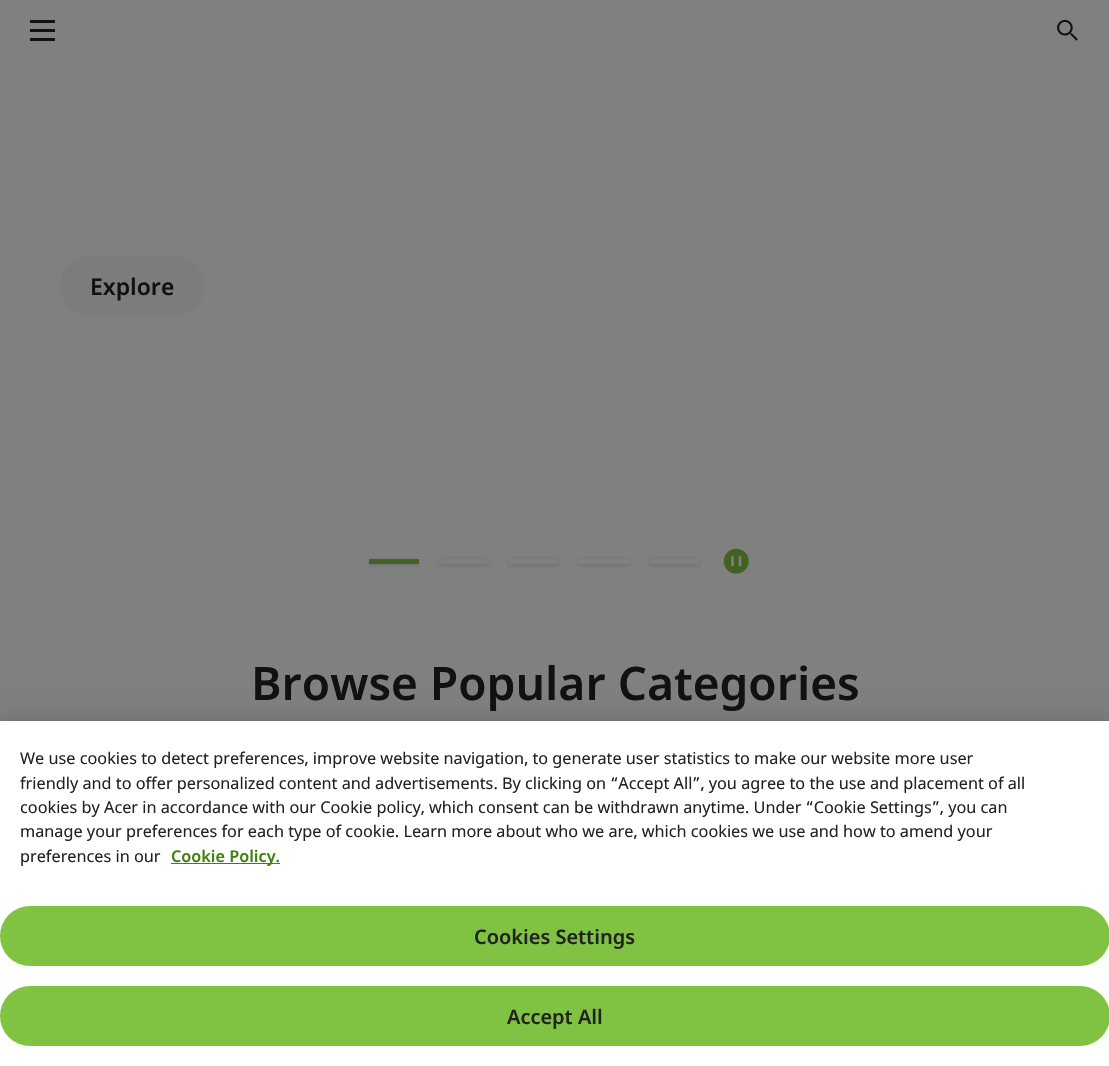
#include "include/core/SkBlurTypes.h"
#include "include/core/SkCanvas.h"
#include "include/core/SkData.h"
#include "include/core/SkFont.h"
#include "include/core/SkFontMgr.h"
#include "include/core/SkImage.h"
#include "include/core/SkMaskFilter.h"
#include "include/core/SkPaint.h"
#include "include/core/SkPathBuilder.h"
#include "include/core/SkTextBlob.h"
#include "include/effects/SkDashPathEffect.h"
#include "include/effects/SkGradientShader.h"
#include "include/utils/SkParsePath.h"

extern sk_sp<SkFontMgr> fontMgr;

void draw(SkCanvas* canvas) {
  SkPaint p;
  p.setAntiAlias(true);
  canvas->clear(SkColorSetRGB(128, 128, 128));
  p.setColor(SkColorSetRGB(17, 17, 17));
  canvas->drawRect(SkRect::MakeLTRB(30, 20, 55, 23), p);
  canvas->drawRect(SkRect::MakeLTRB(30, 29, 55, 32), p);
  canvas->drawRect(SkRect::MakeLTRB(30, 38, 55, 41), p);
  canvas->drawImageRect(SkImages::DeferredFromEncodedData(SkData::MakeFromFileName("images/1.png")), SkRect::MakeLTRB(1057, 19, 1078, 41), SkSamplingOptions());
  p.setColor(SkColorSetRGB(124, 124, 124));
  canvas->drawRoundRect(SkRect::MakeLTRB(60, 256, 205, 316), 30, 30, p);
  p.setColor(SkColorSetARGB(51, 36, 36, 36));
  p.setMaskFilter(SkMaskFilter::MakeBlur(kNormal_SkBlurStyle, 2.5f));
  canvas->drawRect(SkRect::MakeLTRB(369, 560, 419, 565), p);
  p.setMaskFilter(nullptr);
  p.setColor(SkColorSetRGB(64, 98, 34));
  canvas->drawRect(SkRect::MakeLTRB(369, 559, 419, 564), p);
  p.setColor(SkColorSetARGB(51, 36, 36, 36));
  p.setMaskFilter(SkMaskFilter::MakeBlur(kNormal_SkBlurStyle, 2.5f));
  canvas->drawRect(SkRect::MakeLTRB(439, 560, 489, 565), p);
  p.setMaskFilter(nullptr);
  p.setColor(SkColorSetRGB(128, 128, 128));
  canvas->drawRect(SkRect::MakeLTRB(439, 559, 489, 564), p);
  p.setColor(SkColorSetARGB(51, 36, 36, 36));
  p.setMaskFilter(SkMaskFilter::MakeBlur(kNormal_SkBlurStyle, 2.5f));
  canvas->drawRect(SkRect::MakeLTRB(509, 560, 559, 565), p);
  p.setMaskFilter(nullptr);
  p.setColor(SkColorSetRGB(128, 128, 128));
  canvas->drawRect(SkRect::MakeLTRB(509, 559, 559, 564), p);
  p.setColor(SkColorSetARGB(51, 36, 36, 36));
  p.setMaskFilter(SkMaskFilter::MakeBlur(kNormal_SkBlurStyle, 2.5f));
  canvas->drawRect(SkRect::MakeLTRB(579, 560, 629, 565), p);
  p.setMaskFilter(nullptr);
  p.setColor(SkColorSetRGB(128, 128, 128));
  canvas->drawRect(SkRect::MakeLTRB(579, 559, 629, 564), p);
  p.setColor(SkColorSetARGB(51, 36, 36, 36));
  p.setMaskFilter(SkMaskFilter::MakeBlur(kNormal_SkBlurStyle, 2.5f));
  canvas->drawRect(SkRect::MakeLTRB(649, 560, 699, 565), p);
  p.setMaskFilter(nullptr);
  p.setColor(SkColorSetRGB(128, 128, 128));
  canvas->drawRect(SkRect::MakeLTRB(649, 559, 699, 564), p);
  canvas->drawImageRect(SkImages::DeferredFromEncodedData(SkData::MakeFromFileName("images/2.png")), SkRect::MakeLTRB(723, 548, 749, 574), SkSamplingOptions());
  p.setColor(SkColorSetARGB(51, 0, 0, 0));
  p.setMaskFilter(SkMaskFilter::MakeBlur(kNormal_SkBlurStyle, 11));
  canvas->drawRect(SkRect::MakeLTRB(0, 721, 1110, 1066), p);
  p.setMaskFilter(nullptr);
  p.setColor(SK_ColorWHITE);
  canvas->drawRect(SkRect::MakeLTRB(0, 721, 1109, 1066), p);
  p.setColor(SkColorSetRGB(64, 129, 12));
  canvas->drawRect(SkRect::MakeLTRB(171, 863, 280, 864), p);
  p.setColor(SkColorSetRGB(128, 195, 67));
  canvas->drawRoundRect(SkRect::MakeLTRB(0, 906, 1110, 966), 30, 30, p);
  canvas->drawRoundRect(SkRect::MakeLTRB(0, 986, 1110, 1046), 30, 30, p);
  SkFont font1(fontMgr->matchFamilyStyle("Noto Sans", SkFontStyle(600, SkFontStyle::kNormal_Width, SkFontStyle::kUpright_Slant)), 23);
  font1.setSubpixel(true);
  p.setColor(SkColorSetRGB(17, 17, 17));
  canvas->drawString("Explore", 90, 295, font1, p);
  SkFont font2(fontMgr->matchFamilyStyle("Noto Sans", SkFontStyle(600, SkFontStyle::kNormal_Width, SkFontStyle::kUpright_Slant)), 46.1f);
  font2.setSubpixel(true);
  canvas->drawString("Browse Popular Categories", 251, 700, font2, p);
  SkFont font3(fontMgr->matchFamilyStyle("Noto Sans", SkFontStyle::Normal()), 16.25f);
  font3.setSubpixel(true);
  p.setColor(SkColorSetRGB(34, 34, 34));
  canvas->drawString("We use cookies to detect preferences, improve website navigation, to generate user statistics to make our website more user", 20, 764, font3, p);
  canvas->drawString("friendly and to offer personalized content and advertisements. By clicking on “Accept All”, you agree to the use and placement of all", 20, 789, font3, p);
  canvas->drawString("cookies by Acer in accordance with our Cookie policy, which consent can be withdrawn anytime. Under “Cookie Settings”, you can", 20, 813, font3, p);
  canvas->drawString("manage your preferences for each type of cookie. Learn more about who we are, which cookies we use and how to amend your", 20, 837, font3, p);
  canvas->drawString("preferences in our", 20, 862, font3, p);
  SkFont font4(fontMgr->matchFamilyStyle("Noto Sans", SkFontStyle(600, SkFontStyle::kNormal_Width, SkFontStyle::kUpright_Slant)), 16.25f);
  font4.setSubpixel(true);
  p.setColor(SkColorSetRGB(64, 129, 12));
  canvas->drawString("Cookie Policy.", 171, 862, font4, p);
  SkFont font5(fontMgr->matchFamilyStyle("Noto Sans", SkFontStyle(600, SkFontStyle::kNormal_Width, SkFontStyle::kUpright_Slant)), 20);
  font5.setSubpixel(true);
  p.setColor(SkColorSetRGB(34, 34, 34));
  canvas->drawString("Cookies Settings", 474, 944, font5, p);
  canvas->drawString("Accept All", 507, 1024, font5, p);
}
